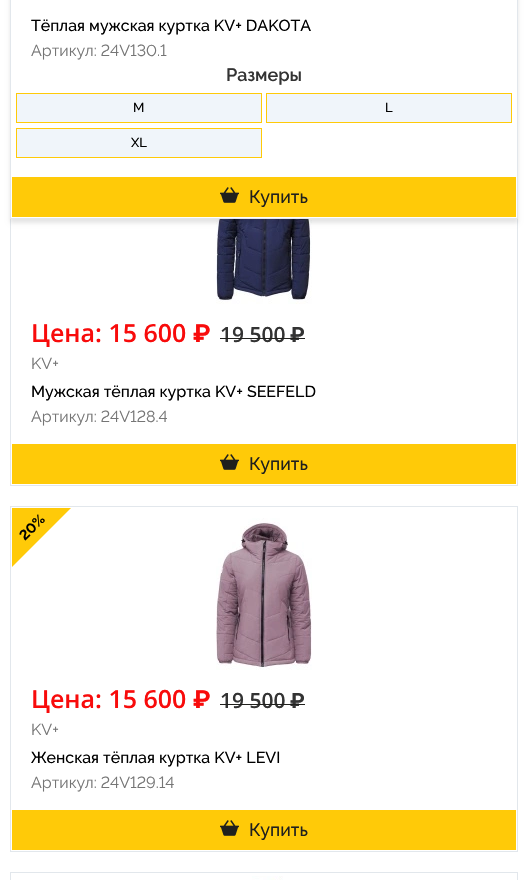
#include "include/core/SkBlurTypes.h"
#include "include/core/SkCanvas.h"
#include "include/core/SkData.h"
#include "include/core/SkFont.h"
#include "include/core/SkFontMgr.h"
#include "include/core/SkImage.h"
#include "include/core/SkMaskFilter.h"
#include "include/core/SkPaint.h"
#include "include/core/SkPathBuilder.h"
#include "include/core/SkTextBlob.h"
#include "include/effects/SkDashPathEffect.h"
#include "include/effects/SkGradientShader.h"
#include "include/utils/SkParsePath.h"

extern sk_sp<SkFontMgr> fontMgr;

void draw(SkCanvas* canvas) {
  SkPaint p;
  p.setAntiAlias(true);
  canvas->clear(SK_ColorWHITE);
  p.setStyle(SkPaint::kStroke_Style);
  p.setStrokeWidth(1);
  p.setColor(SkColorSetRGB(226, 231, 236));
  canvas->drawRect(SkRect::MakeLTRB(10.5f, 140.5f, 517.5f, 485.5f), p);
  canvas->drawImageRect(SkImages::DeferredFromEncodedData(SkData::MakeFromFileName("images/2.png")), SkRect::MakeLTRB(216, 219, 312, 304), SkSamplingOptions());
  p.setStyle(SkPaint::kFill_Style);
  p.setColor(SkColorSetARGB(26, 0, 0, 0));
  p.setMaskFilter(SkMaskFilter::MakeBlur(kNormal_SkBlurStyle, 2));
  canvas->drawRect(SkRect::MakeLTRB(10, -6, 518, 223), p);
  p.setMaskFilter(nullptr);
  p.setColor(SK_ColorWHITE);
  canvas->drawRect(SkRect::MakeLTRB(10.5f, -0.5f, 517.5f, 218.5f), p);
  p.setStyle(SkPaint::kStroke_Style);
  p.setColor(SkColorSetRGB(226, 231, 236));
  canvas->drawRect(SkRect::MakeLTRB(10.5f, -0.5f, 517.5f, 218.5f), p);
  p.setStyle(SkPaint::kFill_Style);
  p.setColor(SkColorSetRGB(240, 245, 250));
  canvas->drawRect(SkRect::MakeLTRB(16.5f, 93.5f, 261.5f, 122.5f), p);
  p.setStyle(SkPaint::kStroke_Style);
  p.setColor(SkColorSetRGB(255, 202, 8));
  canvas->drawRect(SkRect::MakeLTRB(16.5f, 93.5f, 261.5f, 122.5f), p);
  p.setStyle(SkPaint::kFill_Style);
  p.setColor(SkColorSetRGB(240, 245, 250));
  canvas->drawRect(SkRect::MakeLTRB(266.5f, 93.5f, 511.5f, 122.5f), p);
  p.setStyle(SkPaint::kStroke_Style);
  p.setColor(SkColorSetRGB(255, 202, 8));
  canvas->drawRect(SkRect::MakeLTRB(266.5f, 93.5f, 511.5f, 122.5f), p);
  p.setStyle(SkPaint::kFill_Style);
  p.setColor(SkColorSetRGB(240, 245, 250));
  canvas->drawRect(SkRect::MakeLTRB(16.5f, 128.5f, 261.5f, 157.5f), p);
  p.setStyle(SkPaint::kStroke_Style);
  p.setColor(SkColorSetRGB(255, 202, 8));
  canvas->drawRect(SkRect::MakeLTRB(16.5f, 128.5f, 261.5f, 157.5f), p);
  p.setStyle(SkPaint::kFill_Style);
  canvas->drawRect(SkRect::MakeLTRB(12, 177, 516, 217), p);
  canvas->drawImageRect(SkImages::DeferredFromEncodedData(SkData::MakeFromFileName("images/1.png")), SkRect::MakeLTRB(220, 187, 239, 203), SkSamplingOptions());
  canvas->drawRect(SkRect::MakeLTRB(12, 444, 516, 484), p);
  canvas->drawImageRect(SkImages::DeferredFromEncodedData(SkData::MakeFromFileName("images/1.png")), SkRect::MakeLTRB(220, 454, 239, 470), SkSamplingOptions());
  p.setStyle(SkPaint::kStroke_Style);
  p.setColor(SkColorSetRGB(226, 231, 236));
  canvas->drawRect(SkRect::MakeLTRB(10.5f, 506.5f, 517.5f, 851.5f), p);
  canvas->save();
  canvas->clipRect(SkRect::MakeLTRB(12, 508, 516, 678));
  p.setStyle(SkPaint::kFill_Style);
  p.setColor(SkColorSetRGB(255, 202, 8));
  canvas->drawPath(SkPathBuilder().moveTo(-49, 507).lineTo(12, 447).lineTo(72, 507).lineTo(12, 567).close().detach(), p);
  canvas->restore();
  canvas->drawImageRect(SkImages::DeferredFromEncodedData(SkData::MakeFromFileName("images/3.png")), SkRect::MakeLTRB(216, 518, 312, 670), SkSamplingOptions());
  canvas->drawRect(SkRect::MakeLTRB(12, 810, 516, 850), p);
  canvas->drawImageRect(SkImages::DeferredFromEncodedData(SkData::MakeFromFileName("images/1.png")), SkRect::MakeLTRB(220, 820, 239, 836), SkSamplingOptions());
  p.setStyle(SkPaint::kStroke_Style);
  p.setColor(SkColorSetRGB(226, 231, 236));
  canvas->drawRect(SkRect::MakeLTRB(10.5f, 872.5f, 517.5f, 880.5f), p);
  canvas->drawImageRect(SkImages::DeferredFromEncodedData(SkData::MakeFromFileName("images/4.png")), SkRect::MakeLTRB(252, 876, 283, 880), SkSamplingOptions());
  SkFont font1(fontMgr->matchFamilyStyle("Raleway", SkFontStyle(500, SkFontStyle::kNormal_Width, SkFontStyle::kUpright_Slant)), 16);
  font1.setSubpixel(true);
  p.setStyle(SkPaint::kFill_Style);
  p.setColor(SK_ColorBLACK);
  canvas->drawString("Тёплая мужская куртка KV+ DAKOTA", 31, 31, font1, p);
  SkFont font2(fontMgr->matchFamilyStyle("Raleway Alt", SkFontStyle::Normal()), 16);
  font2.setSubpixel(true);
  p.setColor(SkColorSetRGB(117, 117, 117));
  canvas->drawString("Артикул: 24V130.1", 31, 56, font2, p);
  SkFont font3(fontMgr->matchFamilyStyle("Raleway", SkFontStyle(600, SkFontStyle::kNormal_Width, SkFontStyle::kUpright_Slant)), 18);
  font3.setSubpixel(true);
  p.setColor(SkColorSetRGB(51, 51, 51));
  canvas->drawString("Размеры", 226, 81, font3, p);
  SkFont font4(fontMgr->matchFamilyStyle("Raleway", SkFontStyle(500, SkFontStyle::kNormal_Width, SkFontStyle::kUpright_Slant)), 13);
  font4.setSubpixel(true);
  p.setColor(SK_ColorBLACK);
  canvas->drawString("M", 133, 112, font4, p);
  canvas->drawString("L", 385, 112, font4, p);
  canvas->drawString("XL", 131, 147, font4, p);
  SkFont font5(fontMgr->matchFamilyStyle("Raleway", SkFontStyle(500, SkFontStyle::kNormal_Width, SkFontStyle::kUpright_Slant)), 18);
  font5.setSubpixel(true);
  p.setColor(SkColorSetRGB(32, 32, 29));
  canvas->drawString("Купить", 249, 203, font5, p);
  SkFont font6(fontMgr->matchFamilyStyle("Open Sans", SkFontStyle(600, SkFontStyle::kNormal_Width, SkFontStyle::kUpright_Slant)), 25);
  font6.setSubpixel(true);
  p.setColor(SkColorSetRGB(248, 11, 11));
  canvas->drawString("Цена: 15 600", 31, 342, font6, p);
  SkFont font7(fontMgr->matchFamilyStyle("Roboto", SkFontStyle::Bold()), 25);
  font7.setSubpixel(true);
  canvas->drawString("₽", 193, 342, font7, p);
  SkFont font8(fontMgr->matchFamilyStyle("Open Sans", SkFontStyle(600, SkFontStyle::kNormal_Width, SkFontStyle::kUpright_Slant)), 21);
  font8.setSubpixel(true);
  p.setColor(SkColorSetRGB(51, 51, 51));
  canvas->drawString("19 500", 220, 342, font8, p);
  SkFont font9(fontMgr->matchFamilyStyle("Roboto", SkFontStyle::Bold()), 21);
  font9.setSubpixel(true);
  canvas->drawString("₽", 290, 342, font9, p);
  p.setColor(SkColorSetRGB(32, 32, 29));
  canvas->drawRect(SkRect::MakeLTRB(220, 338, 305, 339), p);
  SkFont font10(fontMgr->matchFamilyStyle("Raleway", SkFontStyle::Normal()), 16);
  font10.setSubpixel(true);
  p.setColor(SkColorSetRGB(117, 117, 117));
  canvas->drawString("KV+", 31, 369, font10, p);
  p.setColor(SK_ColorBLACK);
  canvas->drawString("Мужская тёплая куртка KV+ SEEFELD", 31, 397, font1, p);
  p.setColor(SkColorSetRGB(117, 117, 117));
  canvas->drawString("Артикул: 24V128.4", 31, 422, font2, p);
  p.setColor(SkColorSetRGB(32, 32, 29));
  canvas->drawString("Купить", 249, 470, font5, p);
  SkFont font11(fontMgr->matchFamilyStyle("Raleway Alt", SkFontStyle::Bold()), 14);
  font11.setSubpixel(true);
  p.setColor(SK_ColorBLACK);
  canvas->save();
  canvas->rotate(-45, 25, 541);
  canvas->drawString("20%", 25, 541, font11, p);
  canvas->restore();
  p.setColor(SkColorSetRGB(248, 11, 11));
  canvas->drawString("Цена: 15 600", 31, 708, font6, p);
  canvas->drawString("₽", 193, 708, font7, p);
  p.setColor(SkColorSetRGB(51, 51, 51));
  canvas->drawString("19 500", 220, 708, font8, p);
  canvas->drawString("₽", 290, 708, font9, p);
  p.setColor(SkColorSetRGB(32, 32, 29));
  canvas->drawRect(SkRect::MakeLTRB(220, 704, 305, 705), p);
  p.setColor(SkColorSetRGB(117, 117, 117));
  canvas->drawString("KV+", 31, 735, font10, p);
  p.setColor(SK_ColorBLACK);
  canvas->drawString("Женская тёплая куртка KV+ LEVI", 31, 763, font1, p);
  p.setColor(SkColorSetRGB(117, 117, 117));
  canvas->drawString("Артикул: 24V129.14", 31, 788, font2, p);
  p.setColor(SkColorSetRGB(32, 32, 29));
  canvas->drawString("Купить", 249, 836, font5, p);
}
